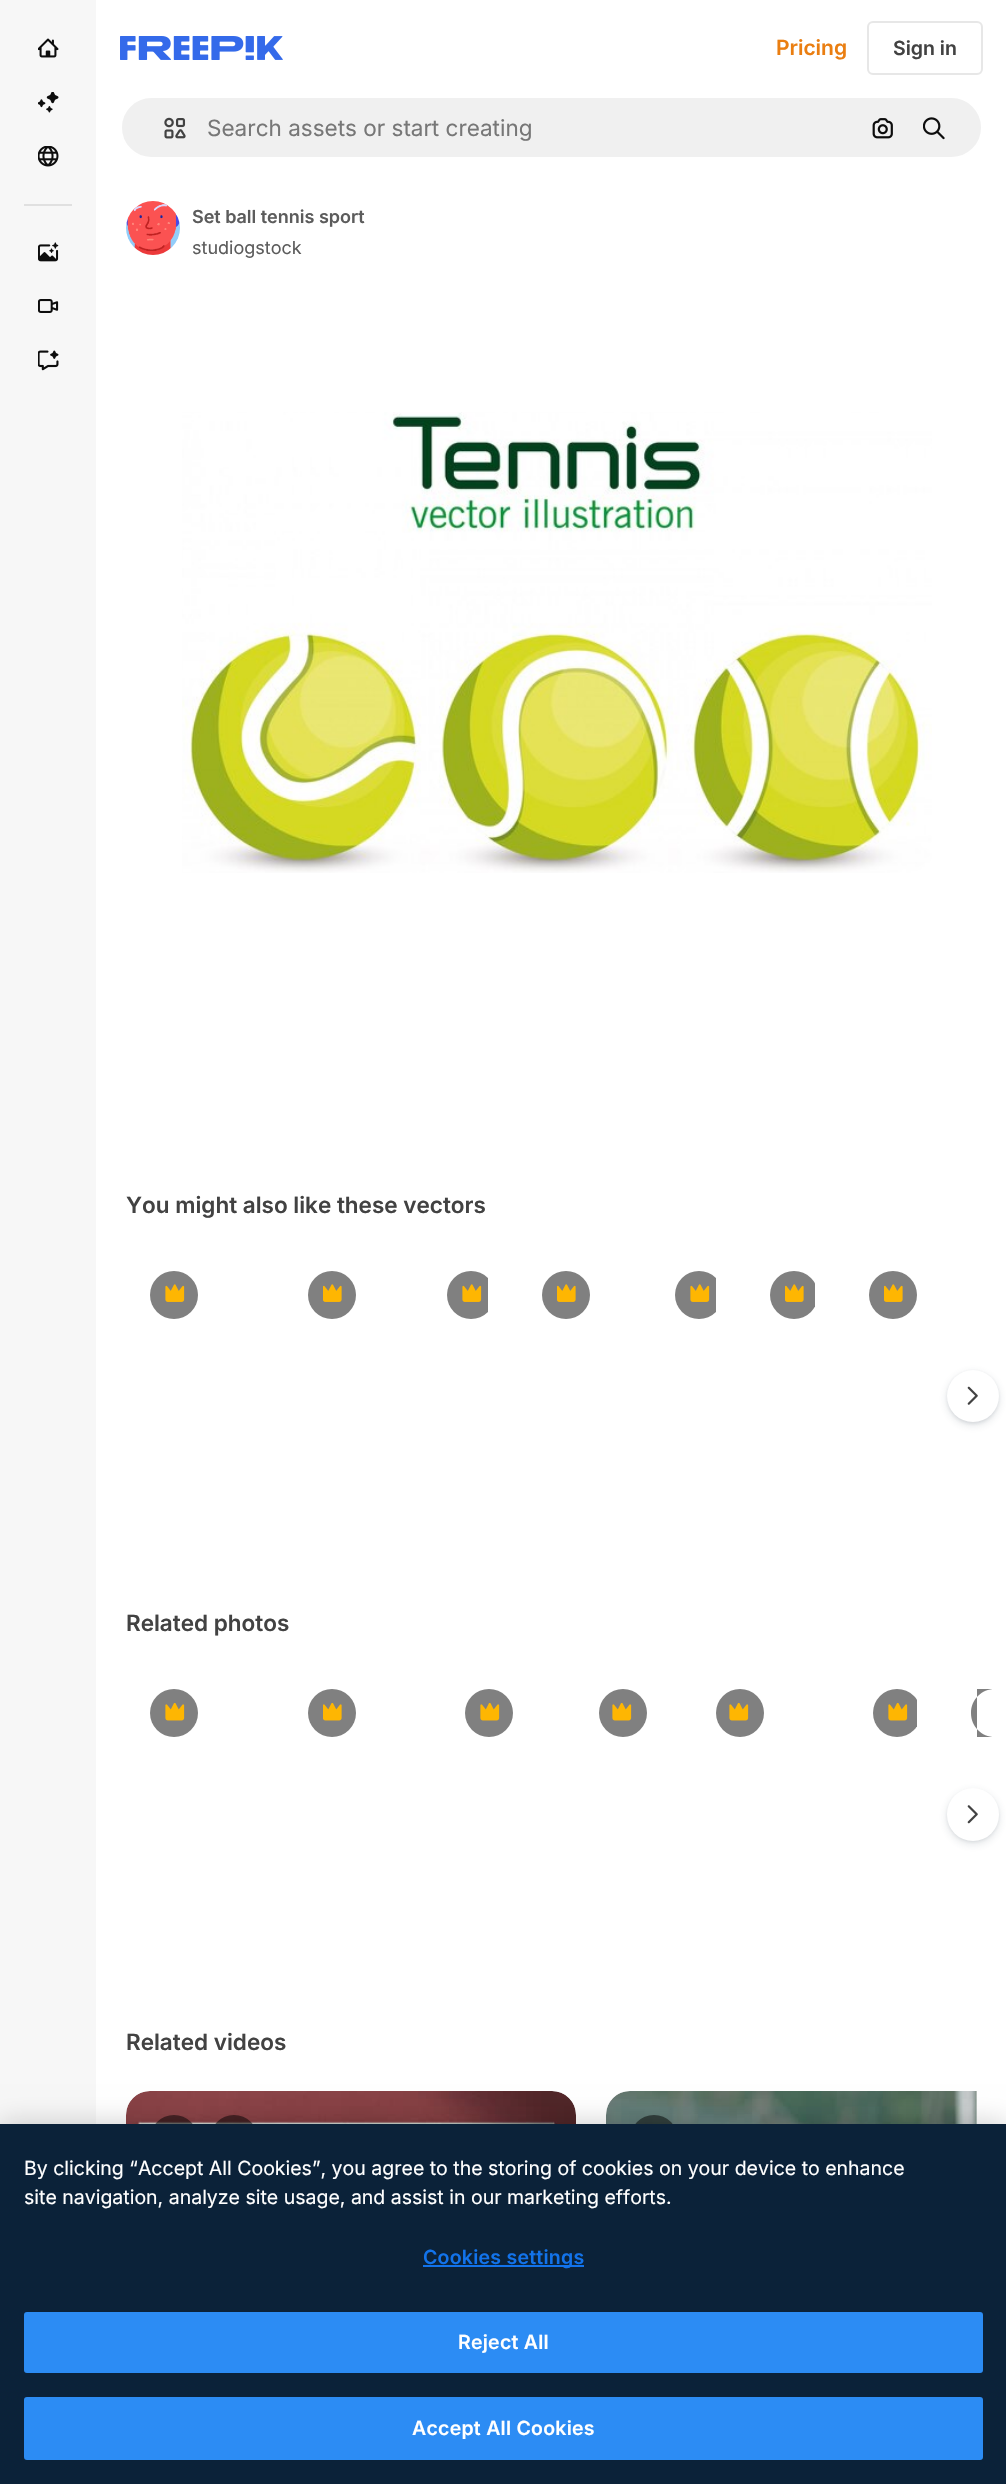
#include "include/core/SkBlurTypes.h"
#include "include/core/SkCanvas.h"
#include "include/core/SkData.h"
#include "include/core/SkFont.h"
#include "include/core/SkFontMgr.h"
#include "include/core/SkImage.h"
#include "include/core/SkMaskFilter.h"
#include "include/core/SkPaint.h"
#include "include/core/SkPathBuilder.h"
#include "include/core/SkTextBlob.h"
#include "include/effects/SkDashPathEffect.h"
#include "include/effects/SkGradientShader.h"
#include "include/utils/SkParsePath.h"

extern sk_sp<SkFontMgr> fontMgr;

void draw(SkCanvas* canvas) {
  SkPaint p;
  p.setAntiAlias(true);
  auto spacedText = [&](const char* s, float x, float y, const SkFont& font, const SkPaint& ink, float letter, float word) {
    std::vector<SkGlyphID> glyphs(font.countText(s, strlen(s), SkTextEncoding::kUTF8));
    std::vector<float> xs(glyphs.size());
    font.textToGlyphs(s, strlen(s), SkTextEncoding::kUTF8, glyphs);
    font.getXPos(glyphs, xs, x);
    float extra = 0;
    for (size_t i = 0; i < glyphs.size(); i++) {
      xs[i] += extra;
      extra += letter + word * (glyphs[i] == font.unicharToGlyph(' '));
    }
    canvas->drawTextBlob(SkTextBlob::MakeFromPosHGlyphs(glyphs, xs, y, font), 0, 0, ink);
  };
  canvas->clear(SK_ColorWHITE);
  p.setColor(SkColorSetRGB(247, 247, 247));
  canvas->drawRect(SkRect::MakeLTRB(0, 0, 96, 2124), p);
  canvas->drawImageRect(SkImages::DeferredFromEncodedData(SkData::MakeFromFileName("images/1.png")), SkRect::MakeLTRB(38, 38, 59, 58), SkSamplingOptions());
  canvas->drawImageRect(SkImages::DeferredFromEncodedData(SkData::MakeFromFileName("images/2.png")), SkRect::MakeLTRB(38, 92, 59, 113), SkSamplingOptions());
  canvas->drawImageRect(SkImages::DeferredFromEncodedData(SkData::MakeFromFileName("images/3.png")), SkRect::MakeLTRB(38, 146, 59, 167), SkSamplingOptions());
  p.setColor(SkColorSetRGB(224, 224, 224));
  canvas->drawRect(SkRect::MakeLTRB(24, 204, 72, 206), p);
  canvas->drawImageRect(SkImages::DeferredFromEncodedData(SkData::MakeFromFileName("images/4.png")), SkRect::MakeLTRB(38, 242, 59, 262), SkSamplingOptions());
  canvas->drawImageRect(SkImages::DeferredFromEncodedData(SkData::MakeFromFileName("images/5.png")), SkRect::MakeLTRB(38, 299, 59, 313), SkSamplingOptions());
  canvas->drawImageRect(SkImages::DeferredFromEncodedData(SkData::MakeFromFileName("images/6.png")), SkRect::MakeLTRB(38, 350, 59, 371), SkSamplingOptions());
  canvas->drawImageRect(SkImages::DeferredFromEncodedData(SkData::MakeFromFileName("images/7.png")), SkRect::MakeLTRB(120, 36, 283, 60), SkSamplingOptions());
  p.setStyle(SkPaint::kStroke_Style);
  p.setStrokeWidth(2);
  p.setColor(SkColorSetRGB(231, 231, 231));
  canvas->drawRoundRect(SkRect::MakeLTRB(868, 22, 982, 74), 5, 5, p);
  p.setStyle(SkPaint::kFill_Style);
  p.setColor(SkColorSetRGB(240, 240, 240));
  canvas->drawRoundRect(SkRect::MakeLTRB(121, 97, 982, 158), 30.5f, 30.5f, p);
  p.setStyle(SkPaint::kStroke_Style);
  p.setColor(SK_ColorWHITE);
  canvas->drawRoundRect(SkRect::MakeLTRB(121, 97, 982, 158), 30.5f, 30.5f, p);
  canvas->drawImageRect(SkImages::DeferredFromEncodedData(SkData::MakeFromFileName("images/8.png")), SkRect::MakeLTRB(164, 117, 186, 139), SkSamplingOptions());
  canvas->drawImageRect(SkImages::DeferredFromEncodedData(SkData::MakeFromFileName("images/9.png")), SkRect::MakeLTRB(872, 118, 893, 139), SkSamplingOptions());
  canvas->drawImageRect(SkImages::DeferredFromEncodedData(SkData::MakeFromFileName("images/10.png")), SkRect::MakeLTRB(923, 117, 945, 140), SkSamplingOptions());
  canvas->drawImageRect(SkImages::DeferredFromEncodedData(SkData::MakeFromFileName("images/11.png")), SkRect::MakeLTRB(126, 201, 180, 255), SkSamplingOptions());
  canvas->drawImageRect(SkImages::DeferredFromEncodedData(SkData::MakeFromFileName("images/12.png")), SkRect::MakeLTRB(182, 412, 932, 873), SkSamplingOptions());
  p.setStyle(SkPaint::kFill_Style);
  p.setColor(SkColorSetRGB(128, 128, 128));
  canvas->drawCircle(174, 1295, 24, p);
  canvas->drawImageRect(SkImages::DeferredFromEncodedData(SkData::MakeFromFileName("images/13.png")), SkRect::MakeLTRB(165, 1284, 185, 1302), SkSamplingOptions());
  canvas->drawCircle(332, 1295, 24, p);
  canvas->drawImageRect(SkImages::DeferredFromEncodedData(SkData::MakeFromFileName("images/14.png")), SkRect::MakeLTRB(323, 1284, 342, 1302), SkSamplingOptions());
  canvas->save();
  canvas->clipPath(SkPathBuilder().moveTo(447, 1247).lineTo(464, 1247).cubicTo(477.5f, 1247, 488, 1257.5f, 488, 1271).lineTo(488, 1523).cubicTo(488, 1536.5f, 477.5f, 1547, 464, 1547).lineTo(447, 1547).cubicTo(433.5f, 1547, 423, 1536.5f, 423, 1523).lineTo(423, 1271).cubicTo(423, 1257.5f, 433.5f, 1247, 447, 1247).close().detach(), true);
  canvas->drawCircle(471, 1295, 24, p);
  canvas->restore();
  canvas->drawImageRect(SkImages::DeferredFromEncodedData(SkData::MakeFromFileName("images/13.png")), SkRect::MakeLTRB(462, 1284, 482, 1302), SkSamplingOptions());
  canvas->drawCircle(566, 1295, 24, p);
  canvas->drawImageRect(SkImages::DeferredFromEncodedData(SkData::MakeFromFileName("images/14.png")), SkRect::MakeLTRB(557, 1284, 576, 1302), SkSamplingOptions());
  canvas->save();
  canvas->clipPath(SkPathBuilder().moveTo(675, 1247).lineTo(692, 1247).cubicTo(705.5f, 1247, 716, 1257.5f, 716, 1271).lineTo(716, 1523).cubicTo(716, 1536.5f, 705.5f, 1547, 692, 1547).lineTo(675, 1547).cubicTo(661.5f, 1547, 651, 1536.5f, 651, 1523).lineTo(651, 1271).cubicTo(651, 1257.5f, 661.5f, 1247, 675, 1247).close().detach(), true);
  canvas->drawCircle(699, 1295, 24, p);
  canvas->restore();
  canvas->drawImageRect(SkImages::DeferredFromEncodedData(SkData::MakeFromFileName("images/13.png")), SkRect::MakeLTRB(690, 1284, 710, 1302), SkSamplingOptions());
  canvas->save();
  canvas->clipPath(SkPathBuilder().moveTo(770, 1247).lineTo(791, 1247).cubicTo(804.5f, 1247, 815, 1257.5f, 815, 1271).lineTo(815, 1523).cubicTo(815, 1536.5f, 804.5f, 1547, 791, 1547).lineTo(770, 1547).cubicTo(756.5f, 1547, 746, 1536.5f, 746, 1523).lineTo(746, 1271).cubicTo(746, 1257.5f, 756.5f, 1247, 770, 1247).close().detach(), true);
  canvas->drawCircle(794, 1295, 24, p);
  canvas->restore();
  canvas->drawImageRect(SkImages::DeferredFromEncodedData(SkData::MakeFromFileName("images/14.png")), SkRect::MakeLTRB(785, 1284, 804, 1302), SkSamplingOptions());
  canvas->drawCircle(893, 1295, 24, p);
  canvas->drawImageRect(SkImages::DeferredFromEncodedData(SkData::MakeFromFileName("images/14.png")), SkRect::MakeLTRB(884, 1284, 903, 1302), SkSamplingOptions());
  p.setColor(SkColorSetARGB(38, 55, 73, 87));
  p.setMaskFilter(SkMaskFilter::MakeBlur(kNormal_SkBlurStyle, 4));
  canvas->drawRoundRect(SkRect::MakeLTRB(947, 1373, 999, 1425), 26, 26, p);
  p.setMaskFilter(nullptr);
  p.setColor(SkColorSetARGB(26, 55, 73, 87));
  p.setMaskFilter(SkMaskFilter::MakeBlur(kNormal_SkBlurStyle, 1.5f));
  canvas->drawRoundRect(SkRect::MakeLTRB(947, 1371, 999, 1424), 26, 26, p);
  p.setMaskFilter(nullptr);
  p.setColor(SK_ColorWHITE);
  canvas->drawCircle(973, 1396, 26, p);
  canvas->drawImageRect(SkImages::DeferredFromEncodedData(SkData::MakeFromFileName("images/15.png")), SkRect::MakeLTRB(967, 1386, 978, 1405), SkSamplingOptions());
  p.setColor(SkColorSetRGB(128, 128, 128));
  canvas->drawCircle(174, 1713, 24, p);
  canvas->drawImageRect(SkImages::DeferredFromEncodedData(SkData::MakeFromFileName("images/16.png")), SkRect::MakeLTRB(165, 1703, 185, 1721), SkSamplingOptions());
  canvas->drawCircle(332, 1713, 24, p);
  canvas->drawImageRect(SkImages::DeferredFromEncodedData(SkData::MakeFromFileName("images/17.png")), SkRect::MakeLTRB(323, 1703, 342, 1721), SkSamplingOptions());
  canvas->drawCircle(489, 1713, 24, p);
  canvas->drawImageRect(SkImages::DeferredFromEncodedData(SkData::MakeFromFileName("images/16.png")), SkRect::MakeLTRB(480, 1703, 500, 1721), SkSamplingOptions());
  canvas->drawCircle(623, 1713, 24, p);
  canvas->drawImageRect(SkImages::DeferredFromEncodedData(SkData::MakeFromFileName("images/16.png")), SkRect::MakeLTRB(612, 1703, 632, 1721), SkSamplingOptions());
  canvas->drawCircle(740, 1713, 24, p);
  canvas->drawImageRect(SkImages::DeferredFromEncodedData(SkData::MakeFromFileName("images/16.png")), SkRect::MakeLTRB(729, 1703, 749, 1721), SkSamplingOptions());
  canvas->save();
  canvas->clipPath(SkPathBuilder().moveTo(873, 1665).lineTo(893, 1665).cubicTo(906.5f, 1665, 917, 1675.5f, 917, 1689).lineTo(917, 1941).cubicTo(917, 1954.5f, 906.5f, 1965, 893, 1965).lineTo(873, 1965).cubicTo(859.5f, 1965, 849, 1954.5f, 849, 1941).lineTo(849, 1689).cubicTo(849, 1675.5f, 859.5f, 1665, 873, 1665).close().detach(), true);
  canvas->drawCircle(897, 1713, 24, p);
  canvas->restore();
  canvas->drawImageRect(SkImages::DeferredFromEncodedData(SkData::MakeFromFileName("images/16.png")), SkRect::MakeLTRB(888, 1703, 908, 1721), SkSamplingOptions());
  canvas->drawPath(SkPathBuilder().moveTo(995, 1689).lineTo(977, 1689).lineTo(977, 1737).lineTo(995, 1737).cubicTo(981.5f, 1737, 971, 1726.5f, 971, 1713).cubicTo(971, 1699.5f, 981.5f, 1689, 995, 1689).close().detach(), p);
  p.setColor(SkColorSetARGB(38, 55, 73, 87));
  p.setMaskFilter(SkMaskFilter::MakeBlur(kNormal_SkBlurStyle, 4));
  canvas->drawRoundRect(SkRect::MakeLTRB(947, 1791, 999, 1844), 26, 26, p);
  p.setMaskFilter(nullptr);
  p.setColor(SkColorSetARGB(26, 55, 73, 87));
  p.setMaskFilter(SkMaskFilter::MakeBlur(kNormal_SkBlurStyle, 1.5f));
  canvas->drawRoundRect(SkRect::MakeLTRB(947, 1790, 999, 1842), 26, 26, p);
  p.setMaskFilter(nullptr);
  p.setColor(SK_ColorWHITE);
  canvas->drawRoundRect(SkRect::MakeLTRB(947, 1788, 999, 1841), 26, 26, p);
  canvas->drawImageRect(SkImages::DeferredFromEncodedData(SkData::MakeFromFileName("images/18.png")), SkRect::MakeLTRB(967, 1805, 978, 1824), SkSamplingOptions());
  p.setColor(SkColorSetRGB(230, 230, 230));
  canvas->drawRoundRect(SkRect::MakeLTRB(126, 2091, 576, 2343), 24, 24, p);
  canvas->drawImageRect(SkImages::DeferredFromEncodedData(SkData::MakeFromFileName("images/19.png")), SkRect::MakeLTRB(126, 2091, 576, 2124), SkSamplingOptions());
  p.setColor(SkColorSetARGB(128, 0, 0, 0));
  canvas->drawCircle(174, 2139, 24, p);
  canvas->drawCircle(234, 2139, 24, p);
  p.setColor(SkColorSetRGB(230, 230, 230));
  canvas->drawPath(SkPathBuilder().moveTo(630, 2091).lineTo(977, 2091).lineTo(977, 2343).lineTo(630, 2343).cubicTo(616.5f, 2343, 606, 2332.5f, 606, 2319).lineTo(606, 2115).cubicTo(606, 2101.5f, 616.5f, 2091, 630, 2091).close().detach(), p);
  canvas->drawImageRect(SkImages::DeferredFromEncodedData(SkData::MakeFromFileName("images/20.png")), SkRect::MakeLTRB(606, 2091, 977, 2124), SkSamplingOptions());
  p.setColor(SkColorSetARGB(128, 0, 0, 0));
  canvas->drawCircle(654, 2139, 24, p);
  p.setColor(SkColorSetARGB(51, 0, 0, 0));
  p.setMaskFilter(SkMaskFilter::MakeBlur(kNormal_SkBlurStyle, 13.5f));
  canvas->drawRect(SkRect::MakeLTRB(0, 2124, 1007, 2484), p);
  p.setMaskFilter(nullptr);
  p.setColor(SkColorSetRGB(11, 34, 57));
  canvas->drawRect(SkRect::MakeLTRB(0, 2124, 1006, 2484), p);
  p.setColor(SkColorSetRGB(18, 115, 235));
  canvas->drawRect(SkRect::MakeLTRB(423, 2265, 584, 2267), p);
  p.setColor(SkColorSetRGB(44, 140, 244));
  canvas->drawRoundRect(SkRect::MakeLTRB(25, 2313, 982, 2372), 2, 2, p);
  p.setStyle(SkPaint::kStroke_Style);
  canvas->drawRoundRect(SkRect::MakeLTRB(25, 2313, 982, 2372), 2, 2, p);
  p.setStyle(SkPaint::kFill_Style);
  canvas->drawRoundRect(SkRect::MakeLTRB(25, 2398, 982, 2459), 2, 2, p);
  p.setStyle(SkPaint::kStroke_Style);
  canvas->drawRoundRect(SkRect::MakeLTRB(25, 2398, 982, 2459), 2, 2, p);
  SkFont font1(fontMgr->matchFamilyStyle("Inter", SkFontStyle(600, SkFontStyle::kNormal_Width, SkFontStyle::kUpright_Slant)), 21);
  font1.setSubpixel(true);
  p.setStyle(SkPaint::kFill_Style);
  p.setColor(SkColorSetRGB(234, 126, 17));
  canvas->drawString("Pricing", 776, 55, font1, p);
  SkFont font2(fontMgr->matchFamilyStyle("Inter", SkFontStyle(600, SkFontStyle::kNormal_Width, SkFontStyle::kUpright_Slant)), 19.5f);
  font2.setSubpixel(true);
  p.setColor(SkColorSetRGB(66, 66, 66));
  canvas->drawString("Sign in", 893, 55, font2, p);
  SkFont font3(fontMgr->matchFamilyStyle("Inter", SkFontStyle::Normal()), 22.5f);
  font3.setSubpixel(true);
  p.setColor(SkColorSetRGB(119, 119, 119));
  canvas->drawString("Search assets or start creating", 207, 136, font3, p);
  SkFont font4(fontMgr->matchFamilyStyle("Inter", SkFontStyle(600, SkFontStyle::kNormal_Width, SkFontStyle::kUpright_Slant)), 18);
  font4.setSubpixel(true);
  p.setColor(SkColorSetRGB(92, 92, 92));
  canvas->drawString("Set ball tennis sport", 192, 223, font4, p);
  SkFont font5(fontMgr->matchFamilyStyle("Inter", SkFontStyle::Normal()), 18);
  font5.setSubpixel(true);
  canvas->drawString("studiogstock", 192, 254, font5, p);
  SkFont font6(fontMgr->matchFamilyStyle("Inter", SkFontStyle(600, SkFontStyle::kNormal_Width, SkFontStyle::kUpright_Slant)), 22.5f);
  font6.setSubpixel(true);
  p.setColor(SkColorSetRGB(66, 66, 66));
  canvas->drawString("You might also like these vectors", 126, 1213, font6, p);
  canvas->drawString("Related photos", 126, 1631, font6, p);
  canvas->drawString("Related videos", 126, 2050, font6, p);
  SkFont font7(fontMgr->matchFamilyStyle("Inter", SkFontStyle::Normal()), 19.5f);
  font7.setSubpixel(true);
  p.setColor(SK_ColorWHITE);
  canvas->drawString("By clicking “Accept All Cookies”, you agree to the storing of cookies on your device to enhance", 24, 2175, font7, p);
  canvas->drawString("site navigation, analyze site usage, and assist in our marketing efforts.", 24, 2204, font7, p);
  p.setColor(SkColorSetRGB(18, 115, 235));
  spacedText("Cookies settings", 423, 2264, font2, p, 0.25f, 0);
  p.setColor(SK_ColorWHITE);
  spacedText("Reject All", 458, 2349, font2, p, 0.25f, 0);
  spacedText("Accept All Cookies", 412, 2435, font2, p, 0.25f, 0);
}
